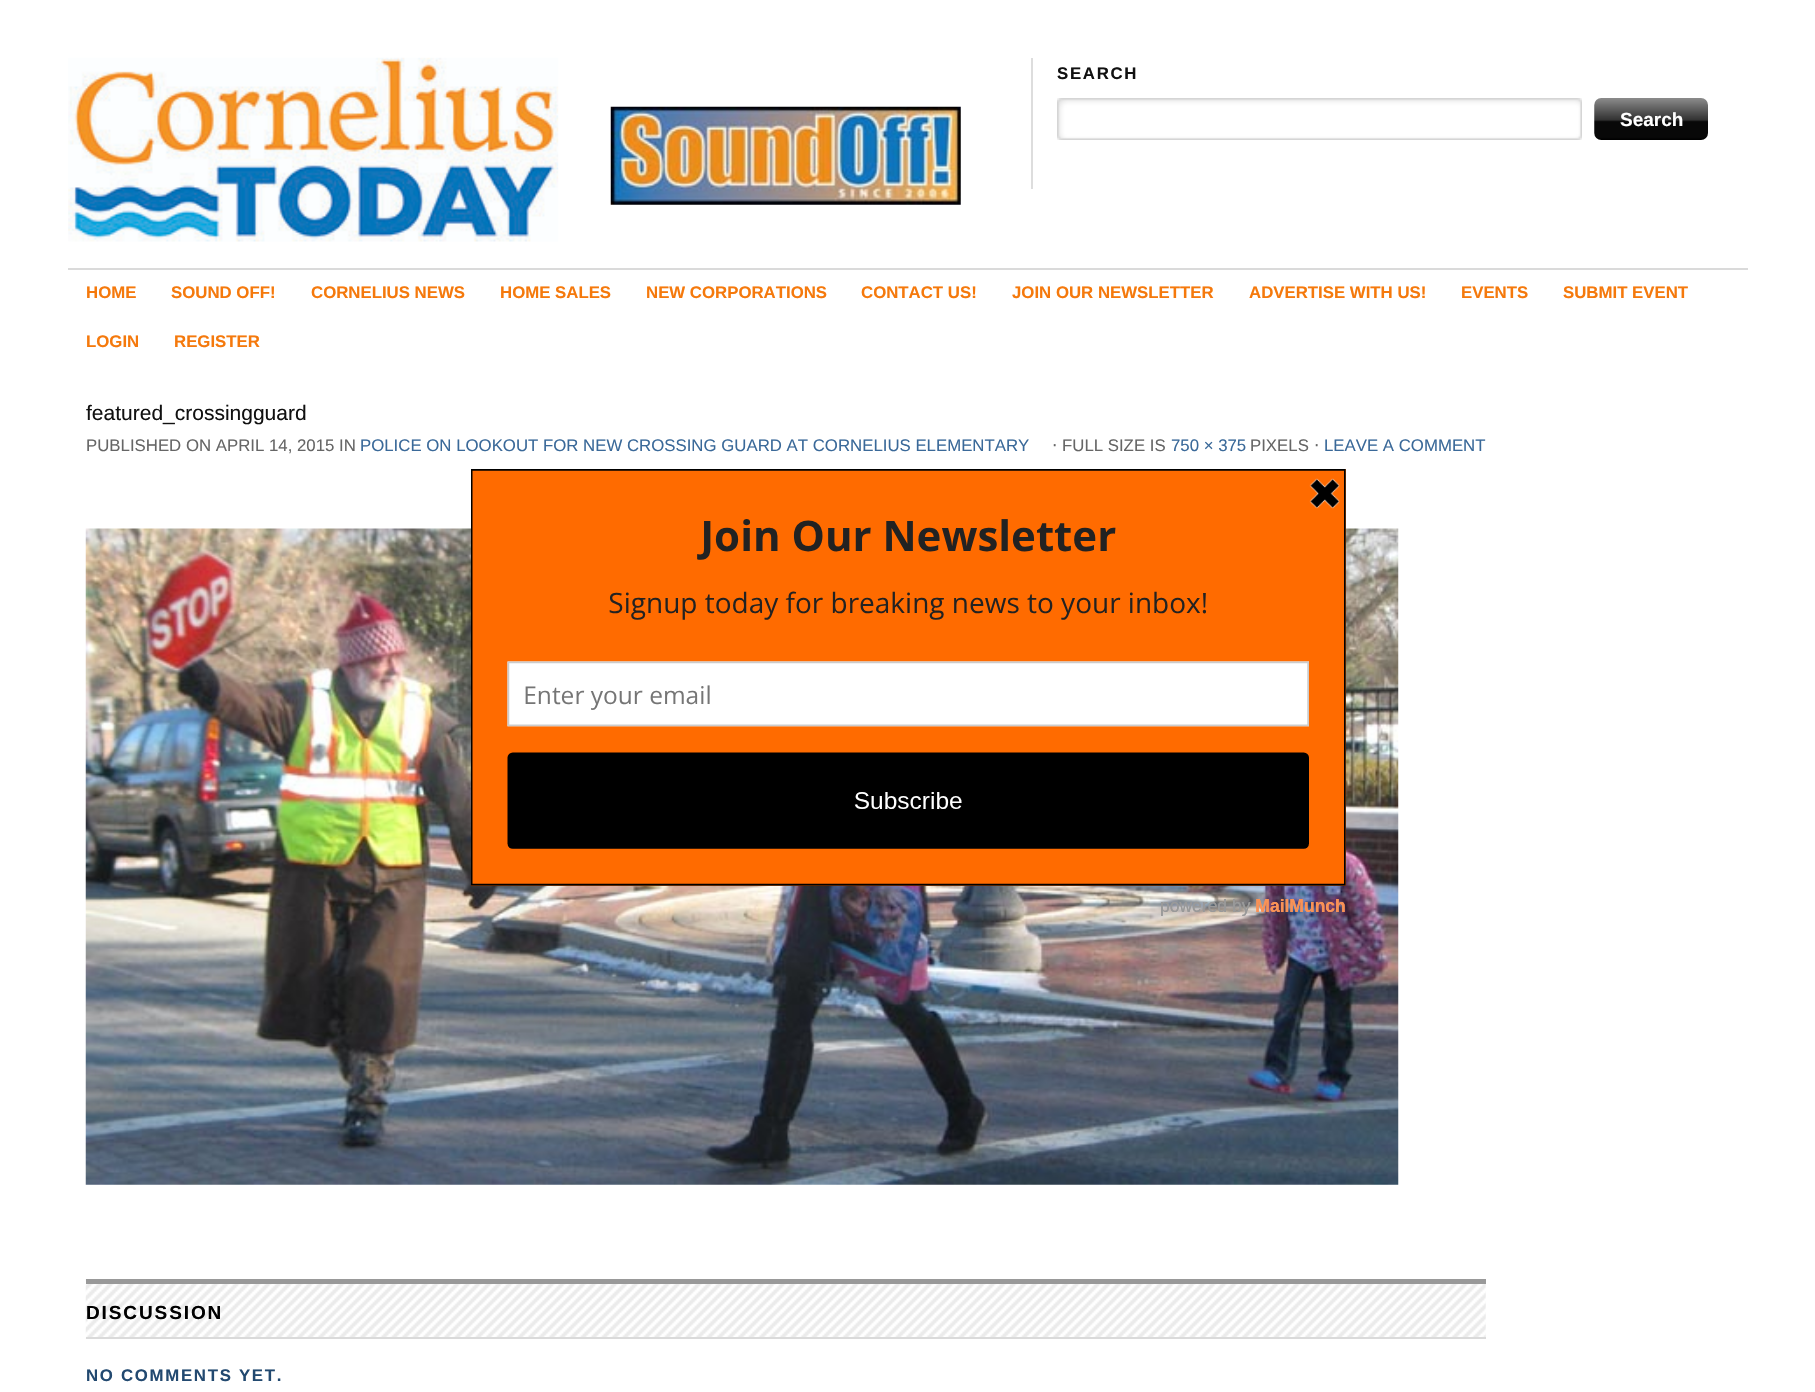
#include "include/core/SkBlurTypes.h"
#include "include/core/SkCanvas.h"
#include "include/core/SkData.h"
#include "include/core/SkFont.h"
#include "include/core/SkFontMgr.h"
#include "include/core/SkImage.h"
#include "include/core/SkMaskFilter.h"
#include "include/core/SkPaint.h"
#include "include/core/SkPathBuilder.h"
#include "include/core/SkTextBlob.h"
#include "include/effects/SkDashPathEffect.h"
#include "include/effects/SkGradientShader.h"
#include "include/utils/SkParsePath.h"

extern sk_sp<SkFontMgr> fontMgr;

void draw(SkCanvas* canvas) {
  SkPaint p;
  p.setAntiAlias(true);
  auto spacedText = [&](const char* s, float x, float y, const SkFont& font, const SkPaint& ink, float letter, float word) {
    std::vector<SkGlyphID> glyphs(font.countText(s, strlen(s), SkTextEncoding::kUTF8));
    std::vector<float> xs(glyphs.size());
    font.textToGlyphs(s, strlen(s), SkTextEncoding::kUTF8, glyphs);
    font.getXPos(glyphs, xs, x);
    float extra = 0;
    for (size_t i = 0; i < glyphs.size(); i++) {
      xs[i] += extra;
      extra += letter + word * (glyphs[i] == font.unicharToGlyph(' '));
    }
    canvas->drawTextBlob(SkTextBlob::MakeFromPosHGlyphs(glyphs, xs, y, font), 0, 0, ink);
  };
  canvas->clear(SK_ColorWHITE);
  canvas->drawImageRect(SkImages::DeferredFromEncodedData(SkData::MakeFromFileName("images/1.png")), SkRect::MakeLTRB(68, 57, 559, 242), SkSamplingOptions());
  p.setColor(SkColorSetRGB(221, 221, 221));
  canvas->drawRect(SkRect::MakeLTRB(1031, 58, 1033, 189), p);
  canvas->drawImageRect(SkImages::DeferredFromEncodedData(SkData::MakeFromFileName("images/2.png")), SkRect::MakeLTRB(1057, 98, 1582, 140), SkSamplingOptions());
  canvas->drawImageRect(SkImages::DeferredFromEncodedData(SkData::MakeFromFileName("images/3.png")), SkRect::MakeLTRB(1594, 98, 1708, 140), SkSamplingOptions());
  canvas->drawImageRect(SkImages::DeferredFromEncodedData(SkData::MakeFromFileName("images/4.png")), SkRect::MakeLTRB(610, 106, 961, 205), SkSamplingOptions());
  p.setColor(SkColorSetRGB(218, 218, 218));
  canvas->drawRect(SkRect::MakeLTRB(68, 268, 1748, 270), p);
  canvas->drawImageRect(SkImages::DeferredFromEncodedData(SkData::MakeFromFileName("images/5.png")), SkRect::MakeLTRB(85, 528, 1399, 1185), SkSamplingOptions());
  canvas->drawImageRect(SkImages::DeferredFromEncodedData(SkData::MakeFromFileName("images/6.png")), SkRect::MakeLTRB(85, 1279, 1486, 1339), SkSamplingOptions());
  p.setColor(SkColorSetRGB(153, 153, 153));
  canvas->drawRect(SkRect::MakeLTRB(86, 1279, 1486, 1284), p);
  p.setColor(SkColorSetRGB(218, 218, 218));
  canvas->drawRect(SkRect::MakeLTRB(86, 1337, 1486, 1339), p);
  canvas->drawImageRect(SkImages::DeferredFromEncodedData(SkData::MakeFromFileName("images/7.png")), SkRect::MakeLTRB(471, 469, 1346, 916), SkSamplingOptions());
  canvas->drawImageRect(SkImages::DeferredFromEncodedData(SkData::MakeFromFileName("images/8.png")), SkRect::MakeLTRB(471, 469, 1346, 916), SkSamplingOptions());
  SkFont font1(fontMgr->matchFamilyStyle("Liberation Sans", SkFontStyle::Bold()), 16.8f);
  font1.setSubpixel(true);
  p.setColor(SkColorSetRGB(17, 17, 17));
  spacedText("SEARCH", 1057, 79, font1, p, 1.7f, 0);
  SkFont font2(fontMgr->matchFamilyStyle("Liberation Sans", SkFontStyle::Bold()), 19);
  font2.setSubpixel(true);
  p.setColor(SK_ColorWHITE);
  canvas->drawString("Search", 1620, 126, font2, p);
  p.setColor(SkColorSetRGB(245, 121, 12));
  canvas->drawString("HOME", 86, 298, font1, p);
  canvas->drawString("SOUND OFF!", 171, 298, font1, p);
  canvas->drawString("CORNELIUS NEWS", 311, 298, font1, p);
  canvas->drawString("HOME SALES", 500, 298, font1, p);
  canvas->drawString("NEW CORPORATIONS", 646, 298, font1, p);
  canvas->drawString("CONTACT US!", 861, 298, font1, p);
  canvas->drawString("JOIN OUR NEWSLETTER", 1012, 298, font1, p);
  canvas->drawString("ADVERTISE WITH US!", 1249, 298, font1, p);
  canvas->drawString("EVENTS", 1461, 298, font1, p);
  canvas->drawString("SUBMIT EVENT", 1563, 298, font1, p);
  canvas->drawString("LOGIN", 86, 347, font1, p);
  canvas->drawString("REGISTER", 174, 347, font1, p);
  SkFont font3(fontMgr->matchFamilyStyle("Liberation Sans", SkFontStyle::Normal()), 21);
  font3.setSubpixel(true);
  p.setColor(SkColorSetRGB(17, 17, 17));
  canvas->drawString("featured_crossingguard", 86, 420, font3, p);
  SkFont font4(fontMgr->matchFamilyStyle("Liberation Sans", SkFontStyle::Normal()), 16.8f);
  font4.setSubpixel(true);
  p.setColor(SkColorSetRGB(102, 102, 102));
  canvas->drawString("PUBLISHED ON APRIL 14, 2015 IN", 86, 451, font4, p);
  p.setColor(SkColorSetRGB(58, 105, 153));
  canvas->drawString("POLICE ON LOOKOUT FOR NEW CROSSING GUARD AT CORNELIUS ELEMENTARY", 360, 451, font4, p);
  SkFont font5(fontMgr->matchFamilyStyle("DejaVu Sans", SkFontStyle::Normal()), 16.8f);
  font5.setSubpixel(true);
  p.setColor(SkColorSetRGB(102, 102, 102));
  canvas->drawString("⋅", 1052, 451, font5, p);
  canvas->drawString("FULL SIZE IS", 1062, 451, font4, p);
  p.setColor(SkColorSetRGB(58, 105, 153));
  canvas->drawString("750 × 375", 1171, 451, font4, p);
  p.setColor(SkColorSetRGB(102, 102, 102));
  canvas->drawString("PIXELS", 1250, 451, font4, p);
  canvas->drawString("⋅", 1314, 451, font5, p);
  p.setColor(SkColorSetRGB(58, 105, 153));
  canvas->drawString("LEAVE A COMMENT", 1324, 451, font4, p);
  p.setColor(SK_ColorBLACK);
  spacedText("DISCUSSION", 86, 1319, font2, p, 1.9f, 0);
  p.setColor(SkColorSetRGB(34, 73, 112));
  spacedText("NO COMMENTS YET.", 86, 1381, font1, p, 1.7f, 0);
}
